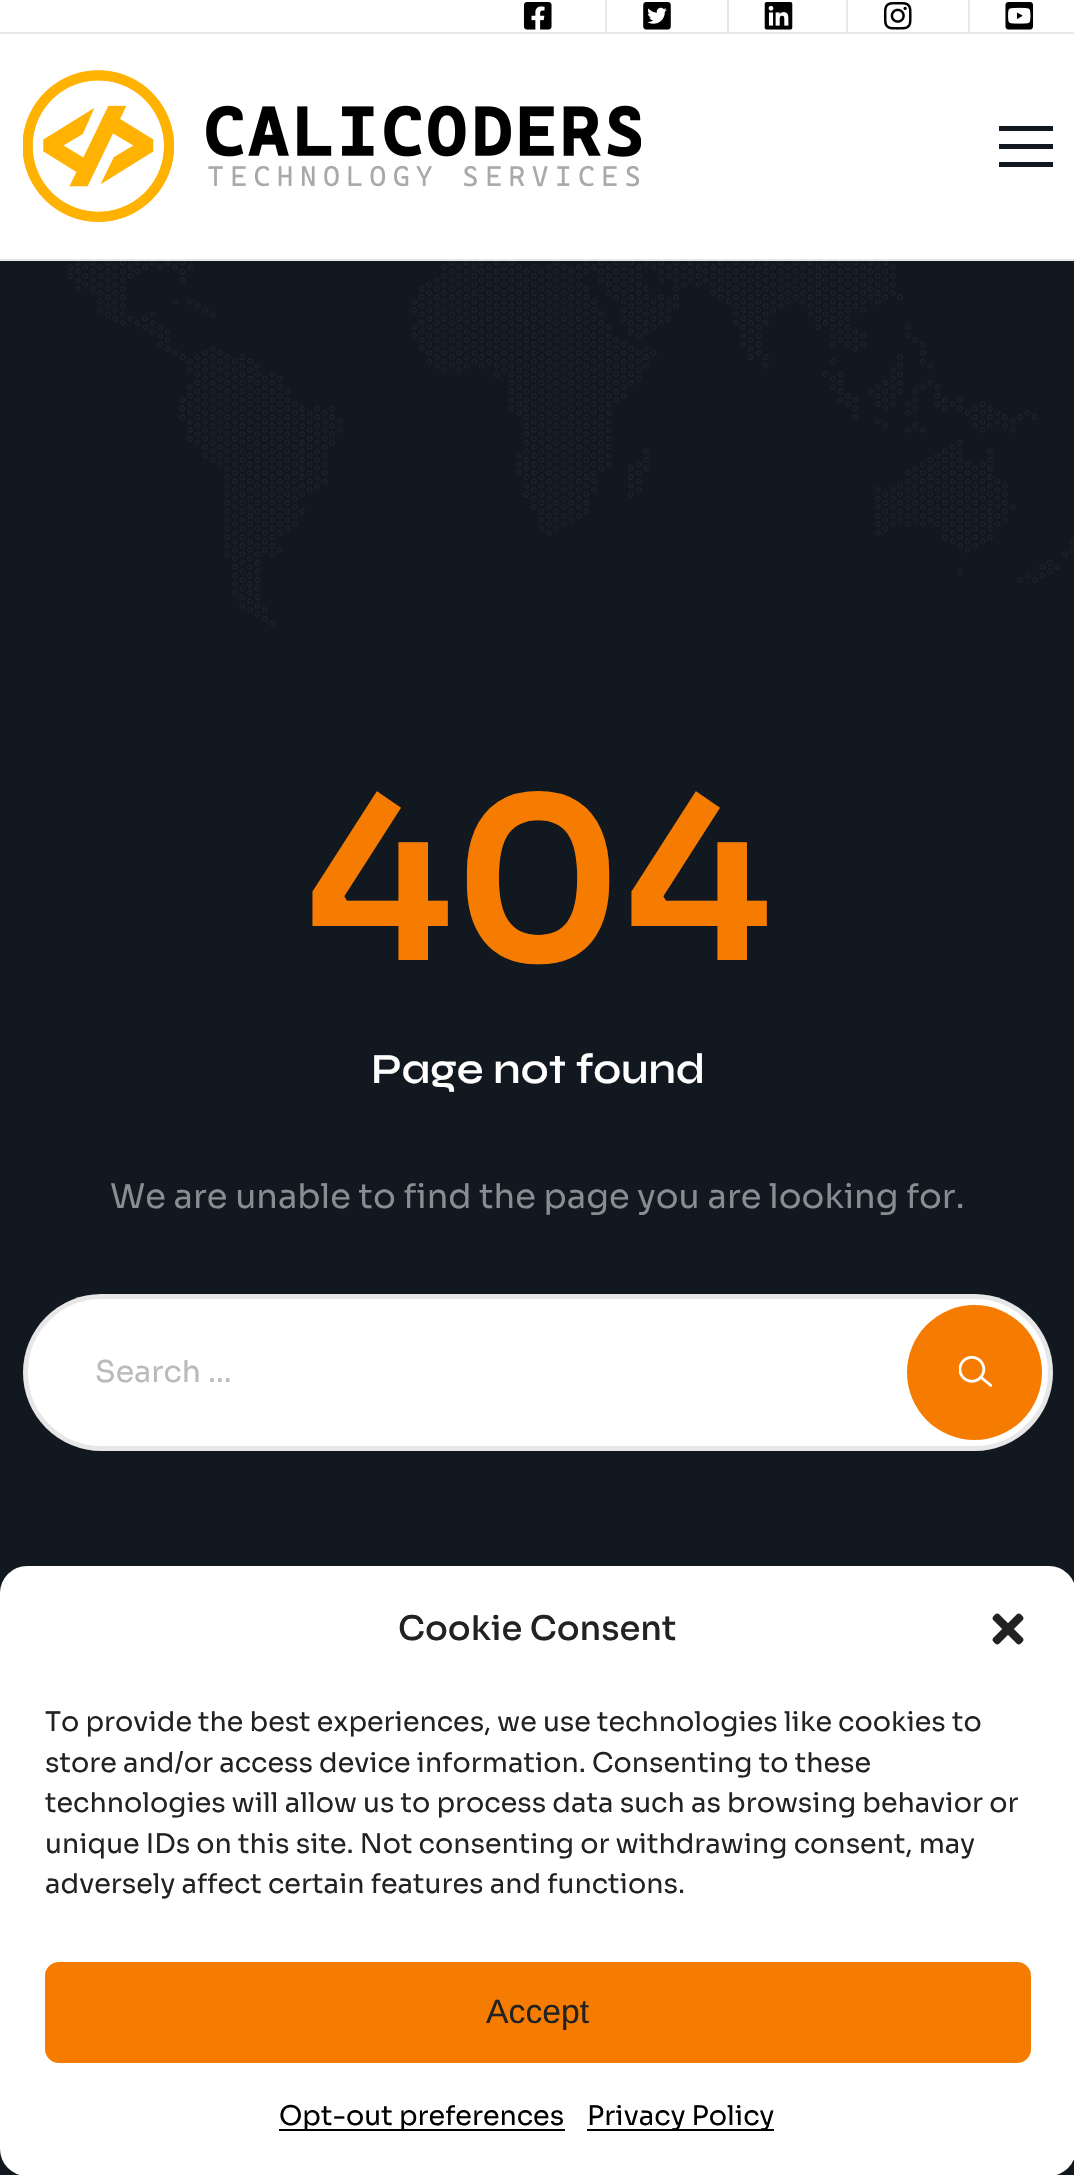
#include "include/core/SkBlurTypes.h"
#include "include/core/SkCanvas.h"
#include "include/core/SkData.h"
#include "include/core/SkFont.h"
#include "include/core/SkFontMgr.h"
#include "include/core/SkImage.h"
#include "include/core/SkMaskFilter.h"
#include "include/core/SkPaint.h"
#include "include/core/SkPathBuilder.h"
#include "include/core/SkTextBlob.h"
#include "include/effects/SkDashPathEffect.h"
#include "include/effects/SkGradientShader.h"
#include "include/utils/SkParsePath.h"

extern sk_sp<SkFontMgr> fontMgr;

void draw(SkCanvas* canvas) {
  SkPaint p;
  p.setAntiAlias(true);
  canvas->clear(SkColorSetRGB(18, 24, 32));
  p.setColor(SK_ColorWHITE);
  canvas->drawRect(SkRect::MakeLTRB(0, 0, 1074, 259), p);
  p.setColor(SkColorSetRGB(231, 232, 233));
  canvas->drawRect(SkRect::MakeLTRB(0, 259, 1074, 261), p);
  canvas->drawRect(SkRect::MakeLTRB(0, 32, 1074, 34), p);
  canvas->drawImageRect(SkImages::DeferredFromEncodedData(SkData::MakeFromFileName("images/1.png")), SkRect::MakeLTRB(523, 2, 552, 30), SkSamplingOptions());
  canvas->drawRect(SkRect::MakeLTRB(605, 0, 607, 32), p);
  canvas->drawImageRect(SkImages::DeferredFromEncodedData(SkData::MakeFromFileName("images/2.png")), SkRect::MakeLTRB(643, 2, 671, 30), SkSamplingOptions());
  canvas->drawRect(SkRect::MakeLTRB(727, 0, 729, 32), p);
  canvas->drawImageRect(SkImages::DeferredFromEncodedData(SkData::MakeFromFileName("images/3.png")), SkRect::MakeLTRB(764, 2, 793, 30), SkSamplingOptions());
  canvas->drawRect(SkRect::MakeLTRB(846, 0, 848, 32), p);
  canvas->drawImageRect(SkImages::DeferredFromEncodedData(SkData::MakeFromFileName("images/4.png")), SkRect::MakeLTRB(883, 1, 912, 30), SkSamplingOptions());
  canvas->drawRect(SkRect::MakeLTRB(968, 0, 970, 32), p);
  canvas->drawImageRect(SkImages::DeferredFromEncodedData(SkData::MakeFromFileName("images/5.png")), SkRect::MakeLTRB(1005, 2, 1034, 30), SkSamplingOptions());
  canvas->drawImageRect(SkImages::DeferredFromEncodedData(SkData::MakeFromFileName("images/6.png")), SkRect::MakeLTRB(23, 70, 641, 222), SkSamplingOptions());
  p.setColor(SkColorSetRGB(18, 24, 32));
  canvas->drawRect(SkRect::MakeLTRB(999, 144, 1053, 149), p);
  canvas->drawRect(SkRect::MakeLTRB(999, 126, 1053, 131), p);
  canvas->drawRect(SkRect::MakeLTRB(999, 162, 1053, 167), p);
  canvas->drawImageRect(SkImages::DeferredFromEncodedData(SkData::MakeFromFileName("images/7.png")), SkRect::MakeLTRB(68, 261, 1074, 626), SkSamplingOptions());
  p.setColor(SK_ColorWHITE);
  canvas->drawRoundRect(SkRect::MakeLTRB(23, 1294, 1053, 1451), 78.5f, 78.5f, p);
  p.setStyle(SkPaint::kStroke_Style);
  p.setStrokeWidth(5);
  p.setColor(SkColorSetARGB(26, 18, 24, 32));
  canvas->drawRoundRect(SkRect::MakeLTRB(25.5f, 1296.5f, 1050.5f, 1448.5f), 76, 76, p);
  p.setStyle(SkPaint::kFill_Style);
  p.setColor(SkColorSetRGB(245, 124, 0));
  canvas->drawCircle(974.5f, 1372.5f, 67.5f, p);
  canvas->drawImageRect(SkImages::DeferredFromEncodedData(SkData::MakeFromFileName("images/8.png")), SkRect::MakeLTRB(959, 1355, 992, 1387), SkSamplingOptions());
  p.setColor(SK_ColorWHITE);
  canvas->drawRoundRect(SkRect::MakeLTRB(0, 1566, 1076, 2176), 27, 27, p);
  canvas->drawImageRect(SkImages::DeferredFromEncodedData(SkData::MakeFromFileName("images/9.png")), SkRect::MakeLTRB(992, 1613, 1024, 1645), SkSamplingOptions());
  p.setColor(SkColorSetRGB(245, 124, 0));
  canvas->drawRoundRect(SkRect::MakeLTRB(46, 1963, 1030, 2062), 13, 13, p);
  p.setStyle(SkPaint::kStroke_Style);
  p.setStrokeWidth(2);
  canvas->drawRoundRect(SkRect::MakeLTRB(46, 1963, 1030, 2062), 13, 13, p);
  p.setStyle(SkPaint::kFill_Style);
  p.setColor(SK_ColorBLACK);
  canvas->drawRect(SkRect::MakeLTRB(279, 2129, 565, 2131), p);
  canvas->drawRect(SkRect::MakeLTRB(587, 2129, 774, 2131), p);
  SkFont font1(fontMgr->matchFamilyStyle("Sora", SkFontStyle(600, SkFontStyle::kNormal_Width, SkFontStyle::kUpright_Slant)), 225);
  font1.setSubpixel(true);
  p.setColor(SkColorSetRGB(245, 124, 0));
  canvas->drawString("404", 304, 960, font1, p);
  SkFont font2(fontMgr->matchFamilyStyle("Syne", SkFontStyle(600, SkFontStyle::kNormal_Width, SkFontStyle::kUpright_Slant)), 42.75f);
  font2.setSubpixel(true);
  p.setColor(SK_ColorWHITE);
  canvas->drawString("Page not found", 371, 1083, font2, p);
  SkFont font3(fontMgr->matchFamilyStyle("Sora", SkFontStyle::Normal()), 33.75f);
  font3.setSubpixel(true);
  p.setColor(SkColorSetRGB(137, 140, 144));
  canvas->drawString("We are unable to find the page you are looking for.", 110, 1208, font3, p);
  SkFont font4(fontMgr->matchFamilyStyle("Sora", SkFontStyle::Normal()), 30);
  font4.setSubpixel(true);
  p.setColor(SkColorSetRGB(184, 186, 188));
  canvas->drawString("Search …", 95, 1382, font4, p);
  SkFont font5(fontMgr->matchFamilyStyle("Sora", SkFontStyle(500, SkFontStyle::kNormal_Width, SkFontStyle::kUpright_Slant)), 33.75f);
  font5.setSubpixel(true);
  p.setColor(SkColorSetRGB(34, 34, 34));
  canvas->drawString("Cookie Consent", 398, 1640, font5, p);
  SkFont font6(fontMgr->matchFamilyStyle("Sora", SkFontStyle::Normal()), 27);
  font6.setSubpixel(true);
  canvas->drawString("To provide the best experiences, we use technologies like cookies to", 45, 1731, font6, p);
  canvas->drawString("store and/or access device information. Consenting to these", 45, 1772, font6, p);
  canvas->drawString("technologies will allow us to process data such as browsing behavior or", 45, 1812, font6, p);
  canvas->drawString("unique IDs on this site. Not consenting or withdrawing consent, may", 45, 1853, font6, p);
  canvas->drawString("adversely affect certain features and functions.", 45, 1893, font6, p);
  SkFont font7(fontMgr->matchFamilyStyle("Liberation Sans", SkFontStyle::Normal()), 33.75f);
  font7.setSubpixel(true);
  canvas->drawString("Accept", 486, 2023, font7, p);
  p.setColor(SK_ColorBLACK);
  canvas->drawString("Opt-out preferences", 279, 2125, font6, p);
  canvas->drawString("Privacy Policy", 587, 2125, font6, p);
}
